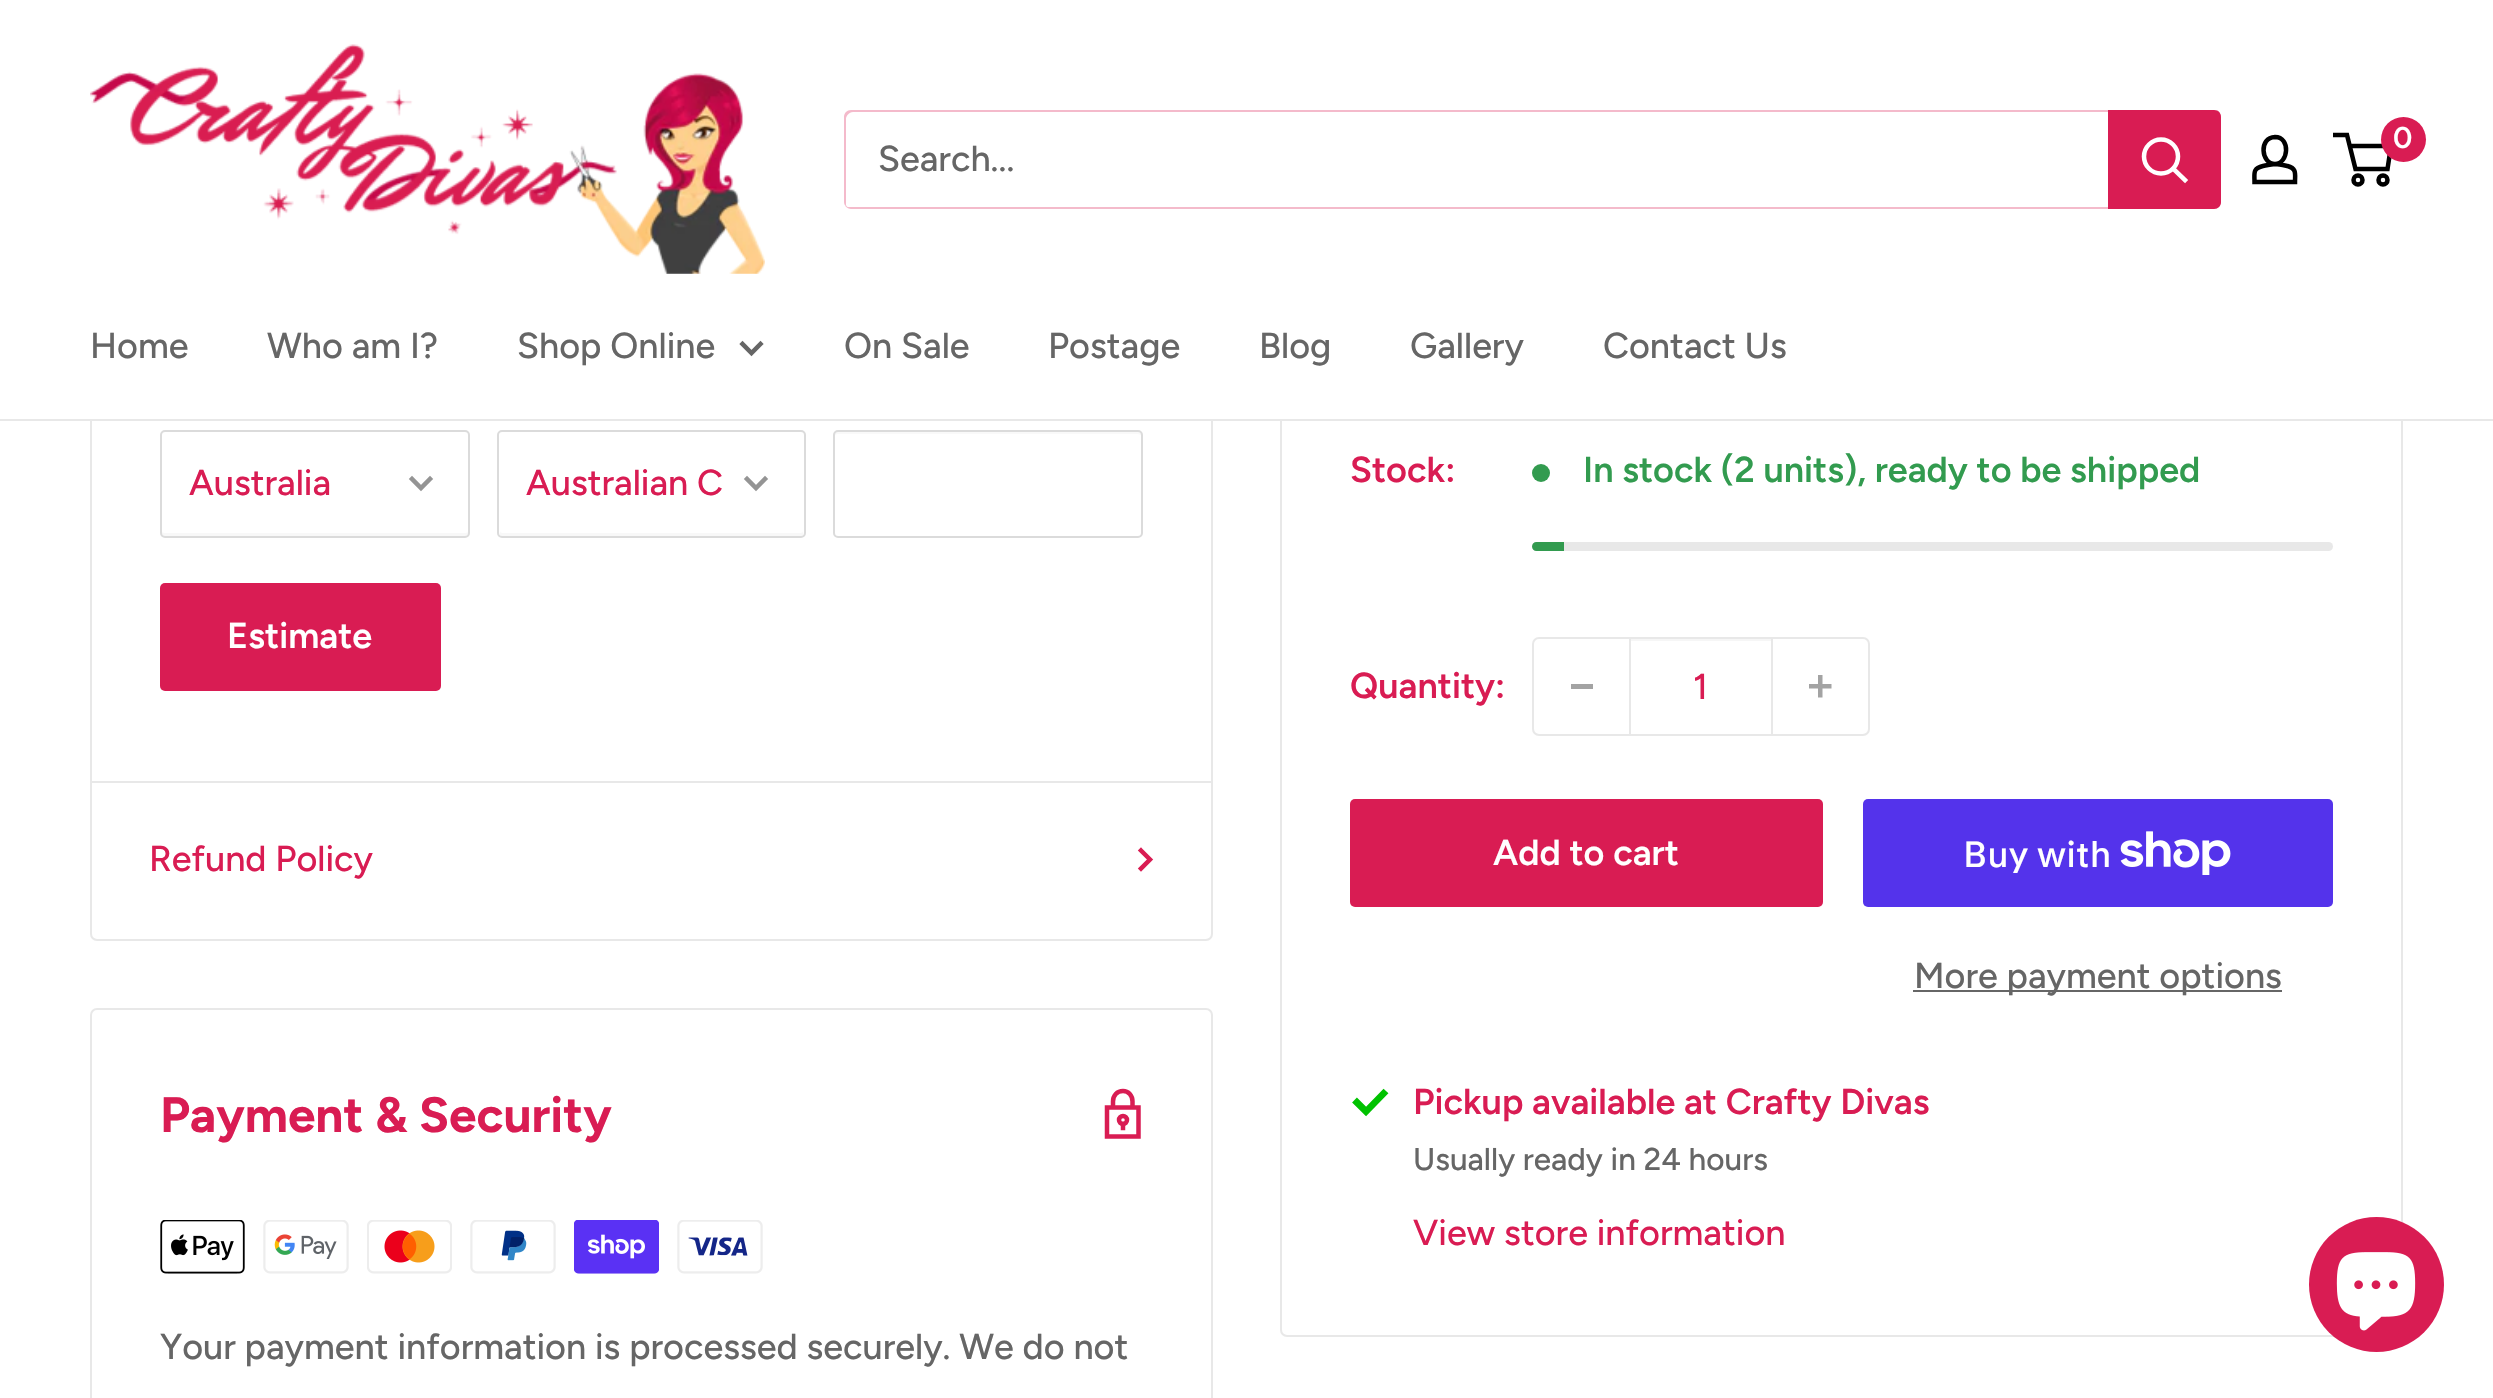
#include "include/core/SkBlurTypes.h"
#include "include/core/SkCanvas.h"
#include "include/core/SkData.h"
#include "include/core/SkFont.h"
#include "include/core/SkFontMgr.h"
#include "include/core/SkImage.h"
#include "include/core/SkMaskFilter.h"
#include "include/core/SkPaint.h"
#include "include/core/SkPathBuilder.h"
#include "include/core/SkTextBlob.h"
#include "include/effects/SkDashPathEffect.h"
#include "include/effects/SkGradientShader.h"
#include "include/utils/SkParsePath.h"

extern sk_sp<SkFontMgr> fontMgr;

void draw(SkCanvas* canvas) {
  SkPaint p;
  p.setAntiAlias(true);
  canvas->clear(SK_ColorWHITE);
  p.setStyle(SkPaint::kStroke_Style);
  p.setStrokeWidth(2);
  p.setColor(SkColorSetRGB(232, 232, 232));
  canvas->drawRoundRect(SkRect::MakeLTRB(91, 154, 1212, 940), 6, 6, p);
  canvas->drawRoundRect(SkRect::MakeLTRB(1281, -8, 2402, 1336), 6, 6, p);
  p.setStyle(SkPaint::kFill_Style);
  p.setColor(SK_ColorWHITE);
  canvas->drawRect(SkRect::MakeLTRB(90, 0, 2403, 419), p);
  canvas->drawImageRect(SkImages::DeferredFromEncodedData(SkData::MakeFromFileName("images/1.png")), SkRect::MakeLTRB(90, 44, 765, 274), SkSamplingOptions());
  p.setStyle(SkPaint::kStroke_Style);
  p.setStrokeWidth(4.5f);
  p.setColor(SK_ColorBLACK);
  canvas->drawPath(SkPathBuilder().moveTo(2275, 164).cubicTo(2279, 164, 2283, 165, 2287.5f, 166).cubicTo(2297, 168.5f, 2295, 174, 2295, 182).lineTo(2254.5f, 182).cubicTo(2254.5f, 173, 2252.5f, 168.5f, 2263, 166).cubicTo(2267, 165, 2271, 164.5f, 2275, 164).close().moveTo(2275, 164).cubicTo(2261, 164, 2258.5f, 137.5f, 2275, 137).cubicTo(2291, 137, 2288.5f, 164, 2275, 164).close().detach(), p);
  canvas->drawCircle(2358, 180, 4.5f, p);
  canvas->drawCircle(2383, 180, 4.5f, p);
  canvas->drawPath(SkPathBuilder().moveTo(2349.5f, 146).lineTo(2391, 146).lineTo(2387.5f, 169).lineTo(2355.5f, 169).lineTo(2347, 135).lineTo(2333, 135).detach(), p);
  p.setStyle(SkPaint::kFill_Style);
  p.setColor(SkColorSetRGB(217, 28, 83));
  canvas->drawCircle(2403.5f, 139.5f, 22.5f, p);
  p.setColor(SkColorSetRGB(244, 187, 203));
  canvas->drawPath(SkPathBuilder().moveTo(845, 206).cubicTo(847, 208, 849, 209, 851, 209).lineTo(2214, 209).cubicTo(2218, 209, 2221, 206, 2221, 202).lineTo(2221, 117).cubicTo(2221, 114, 2219, 111, 2217, 110).cubicTo(2217, 112, 2218, 113, 2218, 115).lineTo(2218, 200).cubicTo(2218, 204, 2215, 207, 2212, 207).lineTo(848, 207).close().detach(), p);
  p.setColor(SkColorSetARGB(77, 217, 28, 83));
  canvas->drawPath(SkPathBuilder().moveTo(853, 112).lineTo(2216, 112).cubicTo(2218, 112, 2219, 113, 2220, 113).cubicTo(2219, 111, 2217, 110, 2214, 110).lineTo(851, 110).cubicTo(847, 110, 844, 113, 844, 117).lineTo(844, 202).cubicTo(844, 204, 845, 206, 847, 207).lineTo(846, 205).lineTo(846, 119).cubicTo(846, 116, 849, 112, 853, 112).close().detach(), p);
  p.setColor(SkColorSetRGB(217, 28, 83));
  canvas->drawPath(SkPathBuilder().moveTo(2108, 110).lineTo(2214, 110).cubicTo(2218, 110, 2221, 113, 2221, 117).lineTo(2221, 202).cubicTo(2221, 206, 2218, 209, 2214, 209).lineTo(2108, 209).close().detach(), p);
  p.setStyle(SkPaint::kStroke_Style);
  p.setStrokeCap(SkPaint::kSquare_Cap);
  p.setColor(SK_ColorWHITE);
  canvas->drawPath(SkPathBuilder().moveTo(2185, 180).lineTo(2173.5f, 169).detach(), p);
  p.setStrokeCap(SkPaint::kButt_Cap);
  canvas->drawCircle(2161, 156.5f, 17, p);
  p.setStyle(SkPaint::kFill_Style);
  p.setColor(SkColorSetRGB(232, 232, 232));
  canvas->drawRect(SkRect::MakeLTRB(0, 419, 2493, 421), p);
  p.setStyle(SkPaint::kStroke_Style);
  p.setStrokeCap(SkPaint::kSquare_Cap);
  p.setColor(SkColorSetRGB(102, 102, 102));
  canvas->drawPath(SkPathBuilder().moveTo(760.5f, 344).lineTo(751.5f, 353).lineTo(742.5f, 344).detach(), p);
  p.setStyle(SkPaint::kFill_Style);
  p.setColor(SkColorSetRGB(248, 248, 248));
  canvas->drawPath(SkPathBuilder().moveTo(162, 531).cubicTo(162, 533, 161, 536, 164, 536).lineTo(466, 536).cubicTo(469, 536, 468, 533, 468, 531).cubicTo(468, 532, 467, 533, 466, 533).lineTo(164, 533).cubicTo(163, 533, 162, 532, 162, 531).close().detach(), p);
  p.setStyle(SkPaint::kStroke_Style);
  p.setStrokeWidth(2);
  p.setStrokeCap(SkPaint::kButt_Cap);
  p.setColor(SkColorSetRGB(219, 219, 219));
  canvas->drawRoundRect(SkRect::MakeLTRB(161, 431, 469, 537), 4, 4, p);
  p.setStrokeWidth(4.5f);
  p.setStrokeCap(SkPaint::kSquare_Cap);
  p.setColor(SkColorSetRGB(148, 148, 148));
  canvas->drawPath(SkPathBuilder().moveTo(430, 479).lineTo(421, 488).lineTo(412, 479).detach(), p);
  p.setStyle(SkPaint::kFill_Style);
  p.setColor(SkColorSetRGB(248, 248, 248));
  canvas->drawPath(SkPathBuilder().moveTo(500, 531).cubicTo(500, 533, 499, 536, 502, 536).lineTo(801, 536).cubicTo(804, 536, 803, 533, 803, 531).cubicTo(803, 532, 802, 533, 801, 533).lineTo(502, 533).cubicTo(501, 533, 500, 532, 500, 531).close().detach(), p);
  p.setStyle(SkPaint::kStroke_Style);
  p.setStrokeWidth(2);
  p.setStrokeCap(SkPaint::kButt_Cap);
  p.setColor(SkColorSetRGB(219, 219, 219));
  canvas->drawRoundRect(SkRect::MakeLTRB(498, 431, 805, 537), 4, 4, p);
  p.setStrokeWidth(4.5f);
  p.setStrokeCap(SkPaint::kSquare_Cap);
  p.setColor(SkColorSetRGB(148, 148, 148));
  canvas->drawPath(SkPathBuilder().moveTo(765, 479).lineTo(756, 488).lineTo(747, 479).detach(), p);
  p.setStyle(SkPaint::kFill_Style);
  p.setColor(SkColorSetRGB(249, 249, 249));
  canvas->drawPath(SkPathBuilder().moveTo(837, 434).lineTo(1138, 434).cubicTo(1140, 434, 1141, 435, 1141, 436).lineTo(1141, 434).cubicTo(1141, 433, 1140, 432, 1139, 432).lineTo(837, 432).cubicTo(836, 432, 835, 433, 835, 434).lineTo(835, 436).cubicTo(835, 435, 836, 434, 837, 434).close().detach(), p);
  p.setStyle(SkPaint::kStroke_Style);
  p.setStrokeWidth(2);
  p.setStrokeCap(SkPaint::kButt_Cap);
  p.setColor(SkColorSetRGB(219, 219, 219));
  canvas->drawRoundRect(SkRect::MakeLTRB(834, 431, 1142, 537), 4, 4, p);
  p.setStyle(SkPaint::kFill_Style);
  p.setColor(SkColorSetRGB(217, 28, 83));
  canvas->drawRoundRect(SkRect::MakeLTRB(160, 583, 441, 691), 5, 5, p);
  p.setColor(SkColorSetRGB(232, 232, 232));
  canvas->drawRect(SkRect::MakeLTRB(92, 781, 1211, 783), p);
  p.setStyle(SkPaint::kStroke_Style);
  p.setStrokeWidth(4.5f);
  p.setStrokeCap(SkPaint::kSquare_Cap);
  p.setColor(SkColorSetRGB(217, 28, 83));
  canvas->drawPath(SkPathBuilder().moveTo(1141, 850.5f).lineTo(1150, 859.5f).lineTo(1141, 868.5f).detach(), p);
  p.setStyle(SkPaint::kFill_Style);
  p.setColor(SkColorSetRGB(50, 155, 79));
  canvas->drawCircle(1541, 473, 9, p);
  p.setColor(SkColorSetRGB(232, 232, 232));
  canvas->drawRoundRect(SkRect::MakeLTRB(1532, 542, 2333, 551), 4.5f, 4.5f, p);
  p.setColor(SkColorSetRGB(50, 155, 79));
  canvas->drawPath(SkPathBuilder().moveTo(1536.5f, 542).lineTo(1564, 542).lineTo(1564, 551).lineTo(1536.5f, 551).cubicTo(1534, 551, 1532, 549, 1532, 546.5f).cubicTo(1532, 544, 1534, 542, 1536.5f, 542).close().detach(), p);
  p.setStyle(SkPaint::kStroke_Style);
  p.setStrokeWidth(2);
  p.setStrokeCap(SkPaint::kButt_Cap);
  p.setColor(SkColorSetRGB(232, 232, 232));
  canvas->drawRoundRect(SkRect::MakeLTRB(1533, 638, 1869, 735), 6, 6, p);
  p.setStyle(SkPaint::kFill_Style);
  p.setColor(SkColorSetRGB(163, 163, 163));
  canvas->drawRect(SkRect::MakeLTRB(1571, 684, 1593, 689), p);
  p.setColor(SkColorSetRGB(246, 246, 246));
  canvas->drawRect(SkRect::MakeLTRB(1631, 639, 1771, 641), p);
  p.setColor(SkColorSetRGB(232, 232, 232));
  canvas->drawRect(SkRect::MakeLTRB(1771, 639, 1773, 734), p);
  canvas->drawRect(SkRect::MakeLTRB(1629, 639, 1631, 734), p);
  canvas->drawImageRect(SkImages::DeferredFromEncodedData(SkData::MakeFromFileName("images/2.png")), SkRect::MakeLTRB(1809, 675, 1832, 698), SkSamplingOptions());
  p.setColor(SkColorSetRGB(217, 28, 83));
  canvas->drawRoundRect(SkRect::MakeLTRB(1350, 799, 1823, 907), 5, 5, p);
  p.setColor(SkColorSetRGB(84, 51, 235));
  canvas->drawRoundRect(SkRect::MakeLTRB(1863, 799, 2333, 907), 5, 5, p);
  canvas->drawImageRect(SkImages::DeferredFromEncodedData(SkData::MakeFromFileName("images/3.png")), SkRect::MakeLTRB(2120, 831, 2231, 875), SkSamplingOptions());
  p.setColor(SkColorSetRGB(102, 102, 102));
  canvas->drawRect(SkRect::MakeLTRB(1913, 990, 2282, 992), p);
  p.setStyle(SkPaint::kStroke_Style);
  p.setStrokeWidth(6.8f);
  p.setColor(SkColorSetRGB(0, 194, 0));
  canvas->drawPath(SkPathBuilder().moveTo(1354.5f, 1100).lineTo(1366, 1111.5f).lineTo(1386, 1091).detach(), p);
  p.setStrokeWidth(2);
  p.setColor(SkColorSetRGB(232, 232, 232));
  canvas->drawRoundRect(SkRect::MakeLTRB(91, 1009, 1212, 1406), 6, 6, p);
  p.setStrokeWidth(4.5f);
  p.setStrokeCap(SkPaint::kSquare_Cap);
  p.setColor(SkColorSetRGB(217, 28, 83));
  canvas->drawPath(SkPathBuilder().moveTo(1123, 1091).cubicTo(1117, 1091, 1113, 1095.5f, 1113, 1101.5f).lineTo(1113, 1107.5f).lineTo(1132.5f, 1107.5f).lineTo(1132.5f, 1101.5f).cubicTo(1132.5f, 1095.5f, 1128.5f, 1091, 1123, 1091).close().moveTo(1107, 1107.5f).lineTo(1138.5f, 1107.5f).lineTo(1138.5f, 1136.5f).lineTo(1107, 1136.5f).close().detach(), p);
  p.setStrokeCap(SkPaint::kButt_Cap);
  canvas->drawCircle(1123, 1120, 4, p);
  p.setStrokeCap(SkPaint::kSquare_Cap);
  canvas->drawPath(SkPathBuilder().moveTo(1123, 1124).lineTo(1123, 1128).detach(), p);
  canvas->drawImageRect(SkImages::DeferredFromEncodedData(SkData::MakeFromFileName("images/4.png")), SkRect::MakeLTRB(160, 1220, 245, 1274), SkSamplingOptions());
  canvas->drawImageRect(SkImages::DeferredFromEncodedData(SkData::MakeFromFileName("images/5.png")), SkRect::MakeLTRB(263, 1220, 349, 1274), SkSamplingOptions());
  canvas->drawImageRect(SkImages::DeferredFromEncodedData(SkData::MakeFromFileName("images/6.png")), SkRect::MakeLTRB(367, 1220, 452, 1274), SkSamplingOptions());
  canvas->drawImageRect(SkImages::DeferredFromEncodedData(SkData::MakeFromFileName("images/7.png")), SkRect::MakeLTRB(470, 1220, 556, 1274), SkSamplingOptions());
  canvas->drawImageRect(SkImages::DeferredFromEncodedData(SkData::MakeFromFileName("images/8.png")), SkRect::MakeLTRB(574, 1220, 659, 1274), SkSamplingOptions());
  canvas->drawImageRect(SkImages::DeferredFromEncodedData(SkData::MakeFromFileName("images/9.png")), SkRect::MakeLTRB(677, 1220, 763, 1274), SkSamplingOptions());
  p.setStyle(SkPaint::kFill_Style);
  canvas->drawCircle(2376.5f, 1284.5f, 67.5f, p);
  canvas->drawImageRect(SkImages::DeferredFromEncodedData(SkData::MakeFromFileName("images/10.png")), SkRect::MakeLTRB(2336, 1252, 2416, 1331), SkSamplingOptions());
  SkFont font1(fontMgr->matchFamilyStyle("Figtree", SkFontStyle(600, SkFontStyle::kNormal_Width, SkFontStyle::kUpright_Slant)), 30);
  font1.setSubpixel(true);
  p.setColor(SK_ColorWHITE);
  canvas->drawString("0", 2393, 148, font1, p);
  SkFont font2(fontMgr->matchFamilyStyle("Figtree", SkFontStyle(500, SkFontStyle::kNormal_Width, SkFontStyle::kUpright_Slant)), 36);
  font2.setSubpixel(true);
  p.setColor(SkColorSetRGB(102, 102, 102));
  canvas->drawString("Search...", 878, 171, font2, p);
  canvas->drawString("Home", 90, 358, font2, p);
  canvas->drawString("Who am I?", 267, 358, font2, p);
  canvas->drawString("Shop Online", 517, 358, font2, p);
  canvas->drawString("On Sale", 844, 358, font2, p);
  canvas->drawString("Postage", 1048, 358, font2, p);
  canvas->drawString("Blog", 1259, 358, font2, p);
  canvas->drawString("Gallery", 1410, 358, font2, p);
  canvas->drawString("Contact Us", 1603, 358, font2, p);
  p.setColor(SkColorSetRGB(217, 28, 83));
  canvas->drawString("Australia", 189, 495, font2, p);
  canvas->drawString("Australian C", 526, 495, font2, p);
  SkFont font3(fontMgr->matchFamilyStyle("Figtree", SkFontStyle(600, SkFontStyle::kNormal_Width, SkFontStyle::kUpright_Slant)), 36);
  font3.setSubpixel(true);
  p.setColor(SK_ColorWHITE);
  canvas->drawString("Estimate", 227, 648, font3, p);
  p.setColor(SkColorSetRGB(217, 28, 83));
  canvas->drawString("Refund Policy", 149, 871, font2, p);
  canvas->drawString("Stock:", 1350, 482, font3, p);
  p.setColor(SkColorSetRGB(50, 155, 79));
  canvas->drawString("In stock (2 units), ready to be shipped", 1583, 482, font3, p);
  p.setColor(SkColorSetRGB(217, 28, 83));
  canvas->drawString("Quantity:", 1350, 698, font3, p);
  canvas->drawString("1", 1693, 699, font2, p);
  p.setColor(SK_ColorWHITE);
  canvas->drawString("Add to cart", 1493, 865, font3, p);
  SkFont font4(fontMgr->matchFamilyStyle("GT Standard", SkFontStyle(500, SkFontStyle::kNormal_Width, SkFontStyle::kUpright_Slant)), 36);
  font4.setSubpixel(true);
  canvas->drawString("Buy with", 1963, 867, font4, p);
  p.setColor(SkColorSetRGB(102, 102, 102));
  canvas->drawString("More payment options", 1914, 988, font2, p);
  p.setColor(SkColorSetRGB(217, 28, 83));
  canvas->drawString("Pickup available at Crafty Divas", 1413, 1114, font3, p);
  SkFont font5(fontMgr->matchFamilyStyle("Figtree", SkFontStyle(500, SkFontStyle::kNormal_Width, SkFontStyle::kUpright_Slant)), 31.5f);
  font5.setSubpixel(true);
  p.setColor(SkColorSetRGB(102, 102, 102));
  canvas->drawString("Usually ready in 24 hours", 1413, 1170, font5, p);
  p.setColor(SkColorSetRGB(217, 28, 83));
  canvas->drawString("View store information", 1413, 1245, font2, p);
  SkFont font6(fontMgr->matchFamilyStyle("Figtree", SkFontStyle::Bold()), 49.5f);
  font6.setSubpixel(true);
  canvas->drawString("Payment & Security", 160, 1132, font6, p);
  p.setColor(SkColorSetRGB(102, 102, 102));
  canvas->drawString("Your payment information is processed securely. We do not", 160, 1359, font2, p);
}
